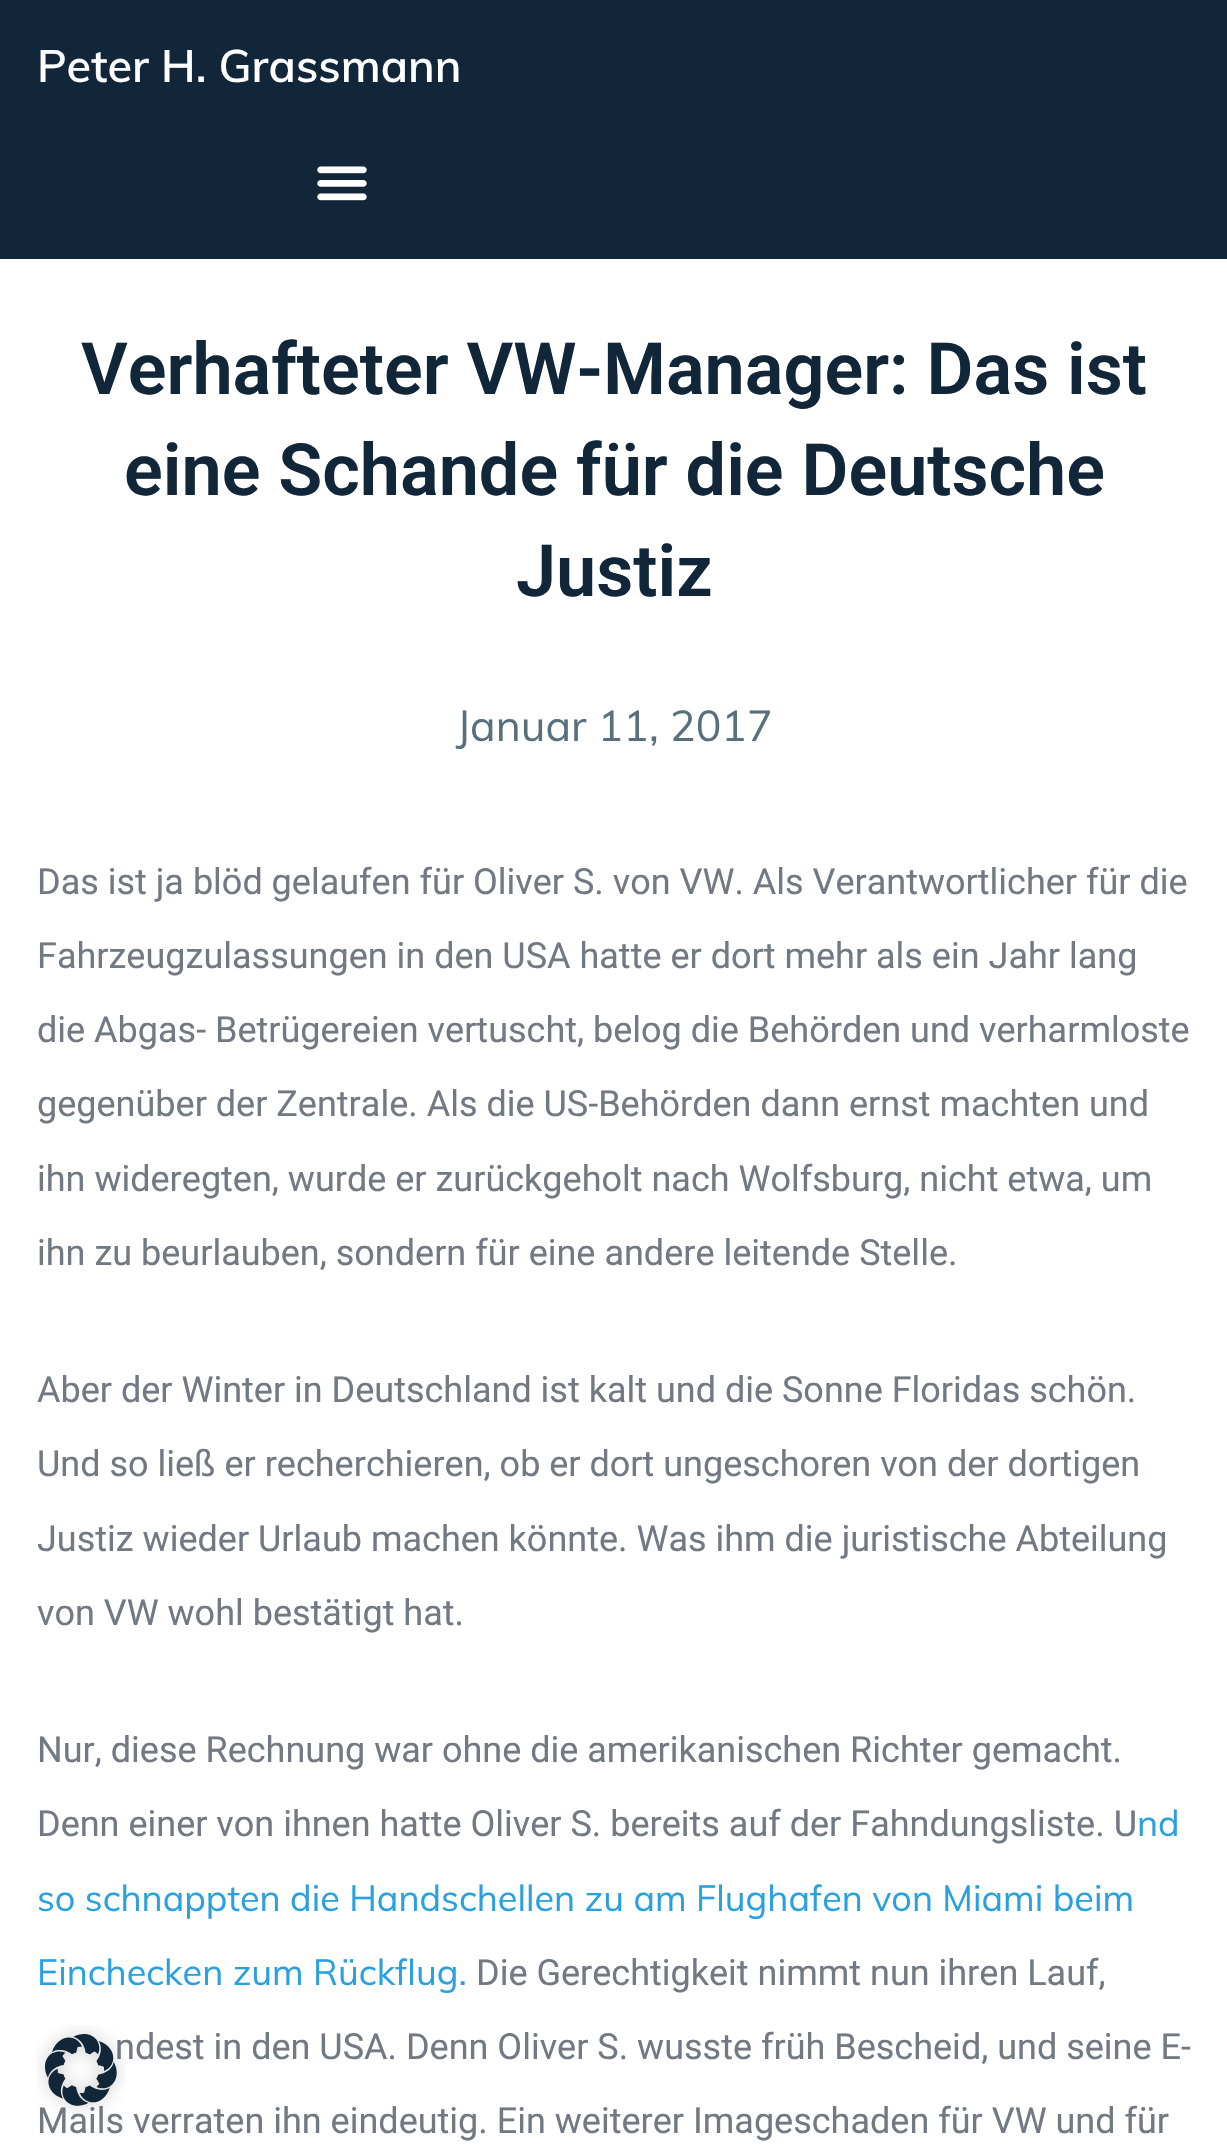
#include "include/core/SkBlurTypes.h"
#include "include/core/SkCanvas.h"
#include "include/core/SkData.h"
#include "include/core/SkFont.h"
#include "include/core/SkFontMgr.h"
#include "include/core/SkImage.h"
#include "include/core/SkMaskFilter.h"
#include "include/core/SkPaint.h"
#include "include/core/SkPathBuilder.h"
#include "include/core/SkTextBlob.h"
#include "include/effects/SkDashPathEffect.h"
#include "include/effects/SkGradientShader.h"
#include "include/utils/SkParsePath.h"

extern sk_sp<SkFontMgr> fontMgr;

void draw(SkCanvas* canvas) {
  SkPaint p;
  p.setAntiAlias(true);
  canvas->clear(SK_ColorWHITE);
  p.setColor(SkColorSetRGB(18, 38, 58));
  canvas->drawRect(SkRect::MakeLTRB(0, 0, 1227, 259), p);
  canvas->drawImageRect(SkImages::DeferredFromEncodedData(SkData::MakeFromFileName("images/1.png")), SkRect::MakeLTRB(317, 166, 367, 201), SkSamplingOptions());
  SkFont font1(fontMgr->matchFamilyStyle("Muli", SkFontStyle(600, SkFontStyle::kNormal_Width, SkFontStyle::kUpright_Slant)), 45);
  font1.setSubpixel(true);
  p.setColor(SK_ColorWHITE);
  canvas->drawString("Peter H. Grassmann", 37, 82, font1, p);
  SkFont font2(fontMgr->matchFamilyStyle("Roboto", SkFontStyle(600, SkFontStyle::kNormal_Width, SkFontStyle::kUpright_Slant)), 72);
  font2.setSubpixel(true);
  p.setColor(SkColorSetRGB(18, 38, 58));
  canvas->drawString("Verhafteter VW-Manager: Das ist", 81, 394, font2, p);
  canvas->drawString("eine Schande für die Deutsche", 124, 495, font2, p);
  canvas->drawString("Justiz", 516, 596, font2, p);
  SkFont font3(fontMgr->matchFamilyStyle("Muli", SkFontStyle::Normal()), 42.75f);
  font3.setSubpixel(true);
  p.setColor(SkColorSetRGB(88, 111, 124));
  canvas->drawString("Januar 11, 2017", 456, 741, font3, p);
  SkFont font4(fontMgr->matchFamilyStyle("Roboto", SkFontStyle::Normal()), 36);
  font4.setSubpixel(true);
  p.setColor(SkColorSetRGB(114, 121, 130));
  canvas->drawString("Das ist ja blöd gelaufen für Oliver S. von VW. Als Verantwortlicher für die", 37, 894, font4, p);
  canvas->drawString("Fahrzeugzulassungen in den USA hatte er dort mehr als ein Jahr lang", 37, 968, font4, p);
  canvas->drawString("die Abgas- Betrügereien vertuscht, belog die Behörden und verharmloste", 37, 1042, font4, p);
  canvas->drawString("gegenüber der Zentrale. Als die US-Behörden dann ernst machten und", 37, 1116, font4, p);
  canvas->drawString("ihn wideregten, wurde er zurückgeholt nach Wolfsburg, nicht etwa, um", 37, 1191, font4, p);
  canvas->drawString("ihn zu beurlauben, sondern für eine andere leitende Stelle.", 37, 1265, font4, p);
  canvas->drawString("Aber der Winter in Deutschland ist kalt und die Sonne Floridas schön.", 37, 1402, font4, p);
  canvas->drawString("Und so ließ er recherchieren, ob er dort ungeschoren von der dortigen", 37, 1476, font4, p);
  canvas->drawString("Justiz wieder Urlaub machen könnte. Was ihm die juristische Abteilung", 37, 1551, font4, p);
  canvas->drawString("von VW wohl bestätigt hat.", 37, 1625, font4, p);
  canvas->drawString("Nur, diese Rechnung war ohne die amerikanischen Richter gemacht.", 37, 1762, font4, p);
  canvas->drawString("Denn einer von ihnen hatte Oliver S. bereits auf der Fahndungsliste. U", 37, 1836, font4, p);
  SkFont font5(fontMgr->matchFamilyStyle("Muli", SkFontStyle::Normal()), 36);
  font5.setSubpixel(true);
  p.setColor(SkColorSetRGB(41, 160, 224));
  canvas->drawString("nd", 1137, 1836, font5, p);
  canvas->drawString("so schnappten die Handschellen zu am Flughafen von Miami beim", 37, 1911, font5, p);
  canvas->drawString("Einchecken zum Rückflug.", 37, 1985, font5, p);
  p.setColor(SkColorSetRGB(114, 121, 130));
  canvas->drawString("Die Gerechtigkeit nimmt nun ihren Lauf,", 476, 1985, font4, p);
  canvas->drawString("ndest in den USA. Denn Oliver S. wusste früh Bescheid, und seine E-", 115, 2059, font4, p);
  canvas->drawString("Mails verraten ihn eindeutig. Ein weiterer Imageschaden für VW und für", 37, 2133, font4, p);
  canvas->drawImageRect(SkImages::DeferredFromEncodedData(SkData::MakeFromFileName("images/2.png")), SkRect::MakeLTRB(36, 2025, 126, 2115), SkSamplingOptions());
}
